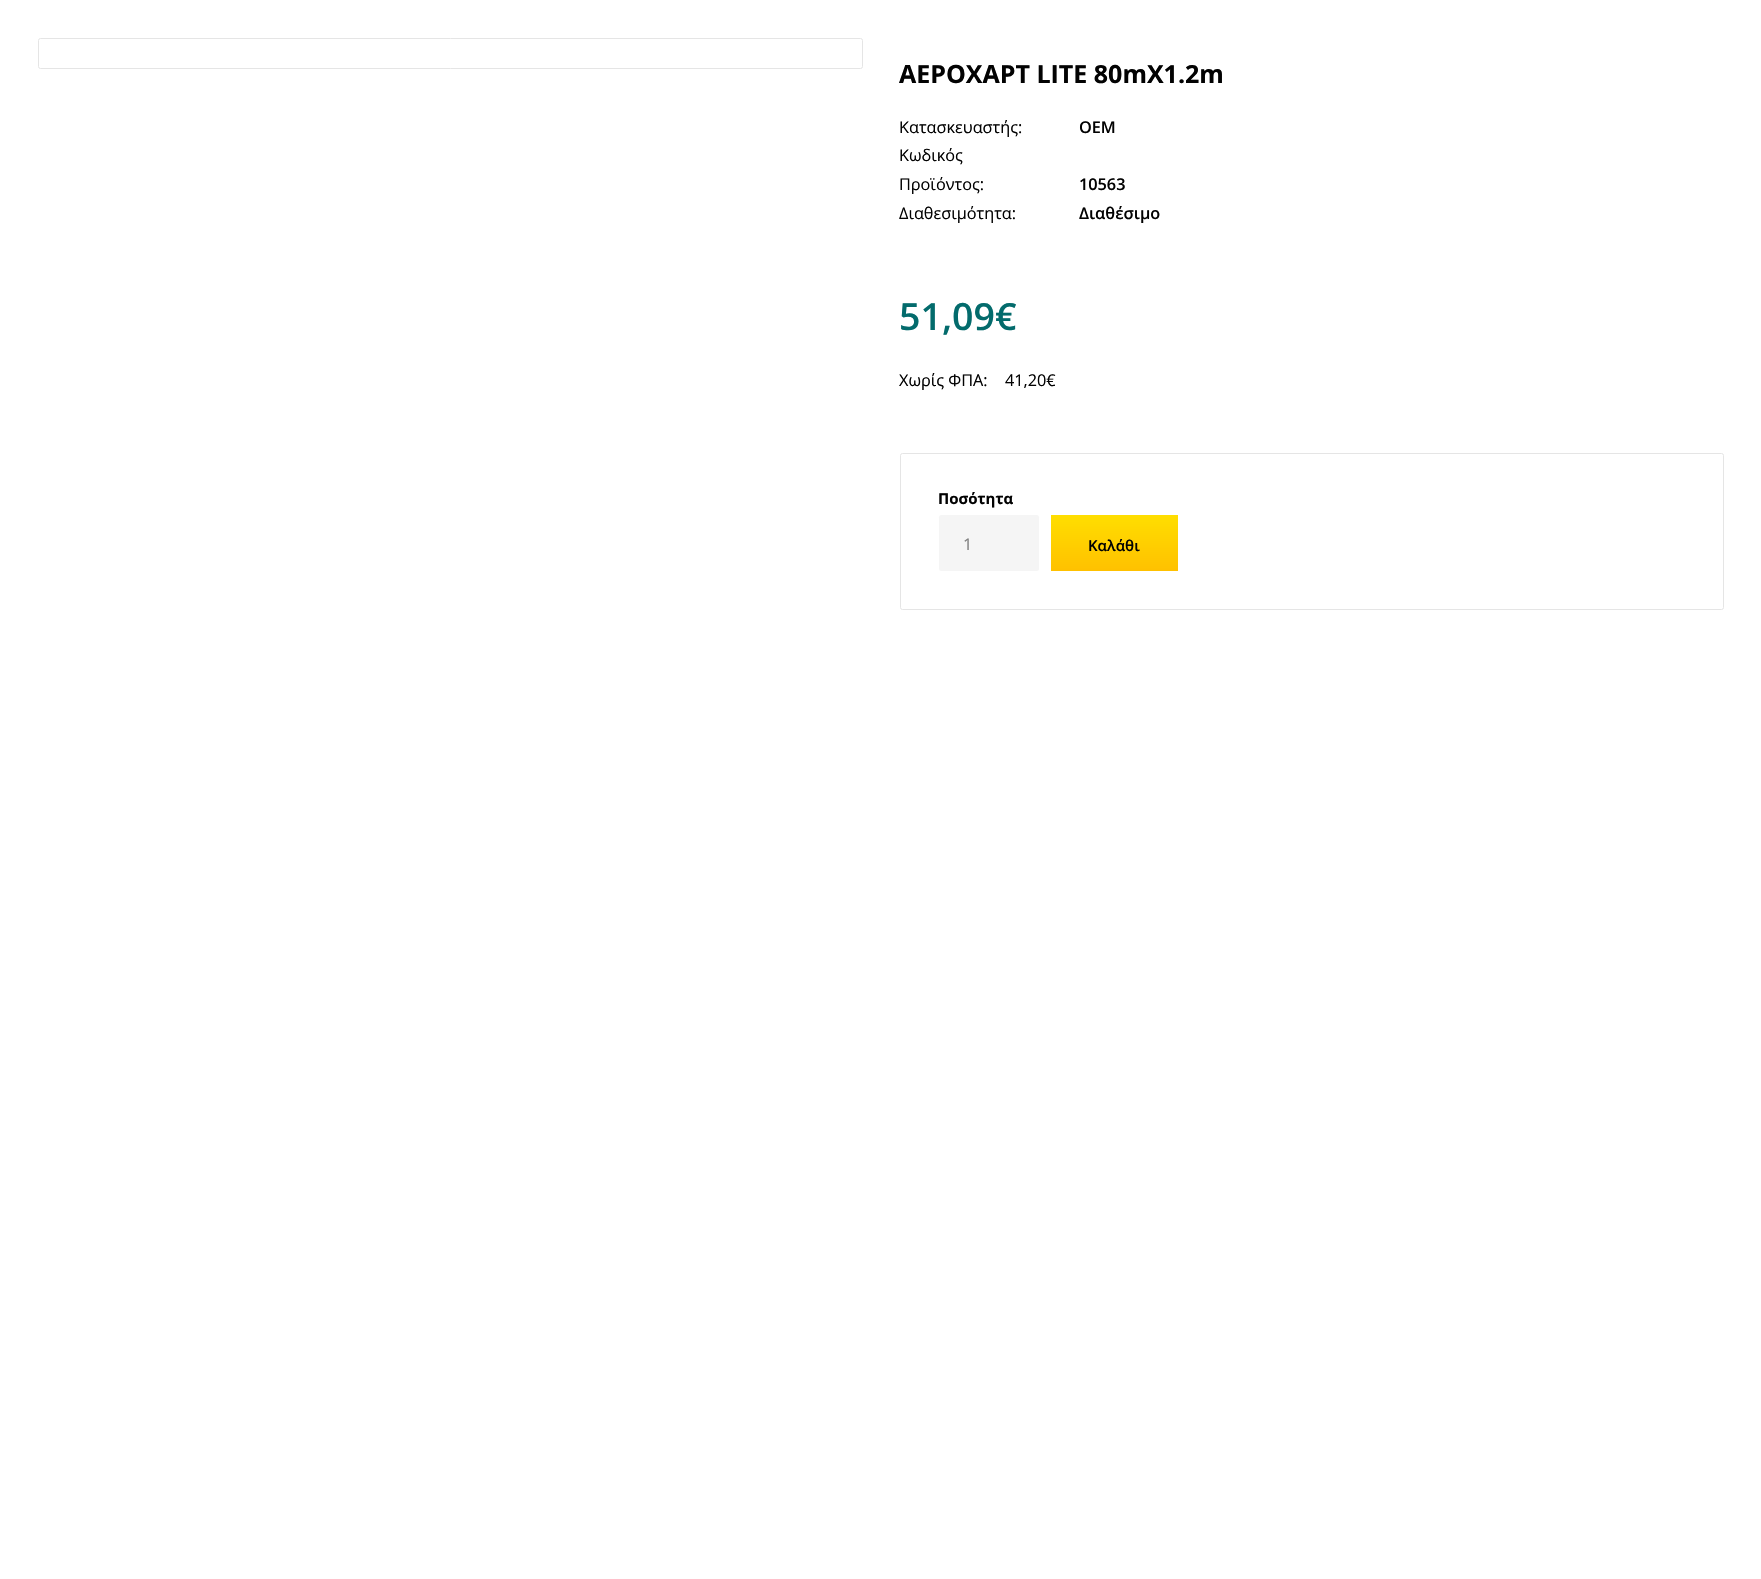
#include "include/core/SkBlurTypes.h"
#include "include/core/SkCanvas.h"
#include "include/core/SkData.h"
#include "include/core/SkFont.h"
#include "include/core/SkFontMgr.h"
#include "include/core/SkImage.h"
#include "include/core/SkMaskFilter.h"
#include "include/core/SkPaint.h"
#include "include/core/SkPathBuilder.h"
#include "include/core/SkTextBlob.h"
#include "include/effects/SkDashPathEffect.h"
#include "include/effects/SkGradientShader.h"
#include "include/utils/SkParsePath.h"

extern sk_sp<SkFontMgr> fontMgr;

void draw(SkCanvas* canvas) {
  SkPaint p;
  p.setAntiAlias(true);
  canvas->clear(SK_ColorWHITE);
  p.setStyle(SkPaint::kStroke_Style);
  p.setStrokeWidth(1);
  p.setColor(SkColorSetRGB(229, 229, 229));
  canvas->drawRoundRect(SkRect::MakeLTRB(38.5f, 38.5f, 862.5f, 68.5f), 2, 2, p);
  canvas->drawRoundRect(SkRect::MakeLTRB(900.5f, 453.5f, 1723.5f, 609.5f), 2, 2, p);
  p.setStyle(SkPaint::kFill_Style);
  p.setColor(SkColorSetRGB(245, 245, 245));
  canvas->drawRoundRect(SkRect::MakeLTRB(939, 515, 1039, 571), 2.5f, 2.5f, p);
  {
    const SkColor colors[] = {SkColorSetRGB(255, 193, 0), SkColorSetRGB(255, 222, 0), SkColorSetRGB(255, 193, 0)};
    const float stops[] = {0, 0, 0.99f};
    const SkPoint ends[] = {{1114, 515}, {1114, 571}};
    p.setShader(SkGradientShader::MakeLinear(ends, colors, stops, 3, SkTileMode::kClamp));
    p.setAlpha(255);
  }
  canvas->drawRect(SkRect::MakeLTRB(1051, 515, 1178, 571), p);
  SkFont font1(fontMgr->matchFamilyStyle("Open Sans", SkFontStyle::Bold()), 25);
  font1.setSubpixel(true);
  p.setShader(nullptr);
  p.setColor(SkColorSetRGB(2, 2, 2));
  canvas->drawString("ΑΕΡΟΧΑΡΤ LITE 80mX1.2m", 899, 83, font1, p);
  SkFont font2(fontMgr->matchFamilyStyle("Open Sans", SkFontStyle::Normal()), 16.25f);
  font2.setSubpixel(true);
  canvas->drawString("Κατασκευαστής:", 899, 133, font2, p);
  SkFont font3(fontMgr->matchFamilyStyle("Open Sans", SkFontStyle(600, SkFontStyle::kNormal_Width, SkFontStyle::kUpright_Slant)), 16.25f);
  font3.setSubpixel(true);
  canvas->drawString("OEM", 1079, 133, font3, p);
  canvas->drawString("Κωδικός", 899, 161, font2, p);
  canvas->drawString("Προϊόντος:", 899, 190, font2, p);
  canvas->drawString("10563", 1079, 190, font3, p);
  canvas->drawString("Διαθεσιμότητα:", 899, 219, font2, p);
  canvas->drawString("Διαθέσιμο", 1079, 219, font3, p);
  SkFont font4(fontMgr->matchFamilyStyle("Open Sans", SkFontStyle(600, SkFontStyle::kNormal_Width, SkFontStyle::kUpright_Slant)), 37.5f);
  font4.setSubpixel(true);
  p.setColor(SkColorSetRGB(3, 107, 108));
  canvas->drawString("51,09€", 899, 330, font4, p);
  p.setColor(SkColorSetRGB(2, 2, 2));
  canvas->drawString("Χωρίς ΦΠΑ:", 899, 386, font2, p);
  canvas->drawString("41,20€", 1005, 386, font2, p);
  SkFont font5(fontMgr->matchFamilyStyle("Open Sans", SkFontStyle::Bold()), 15);
  font5.setSubpixel(true);
  canvas->drawString("Ποσότητα", 938, 504, font5, p);
  p.setColor(SkColorSetRGB(128, 128, 128));
  canvas->drawString("1", 963, 550, font2, p);
  SkFont font6(fontMgr->matchFamilyStyle("Open Sans", SkFontStyle(600, SkFontStyle::kNormal_Width, SkFontStyle::kUpright_Slant)), 15);
  font6.setSubpixel(true);
  p.setColor(SkColorSetRGB(2, 2, 2));
  canvas->drawString("Καλάθι", 1088, 551, font6, p);
}
